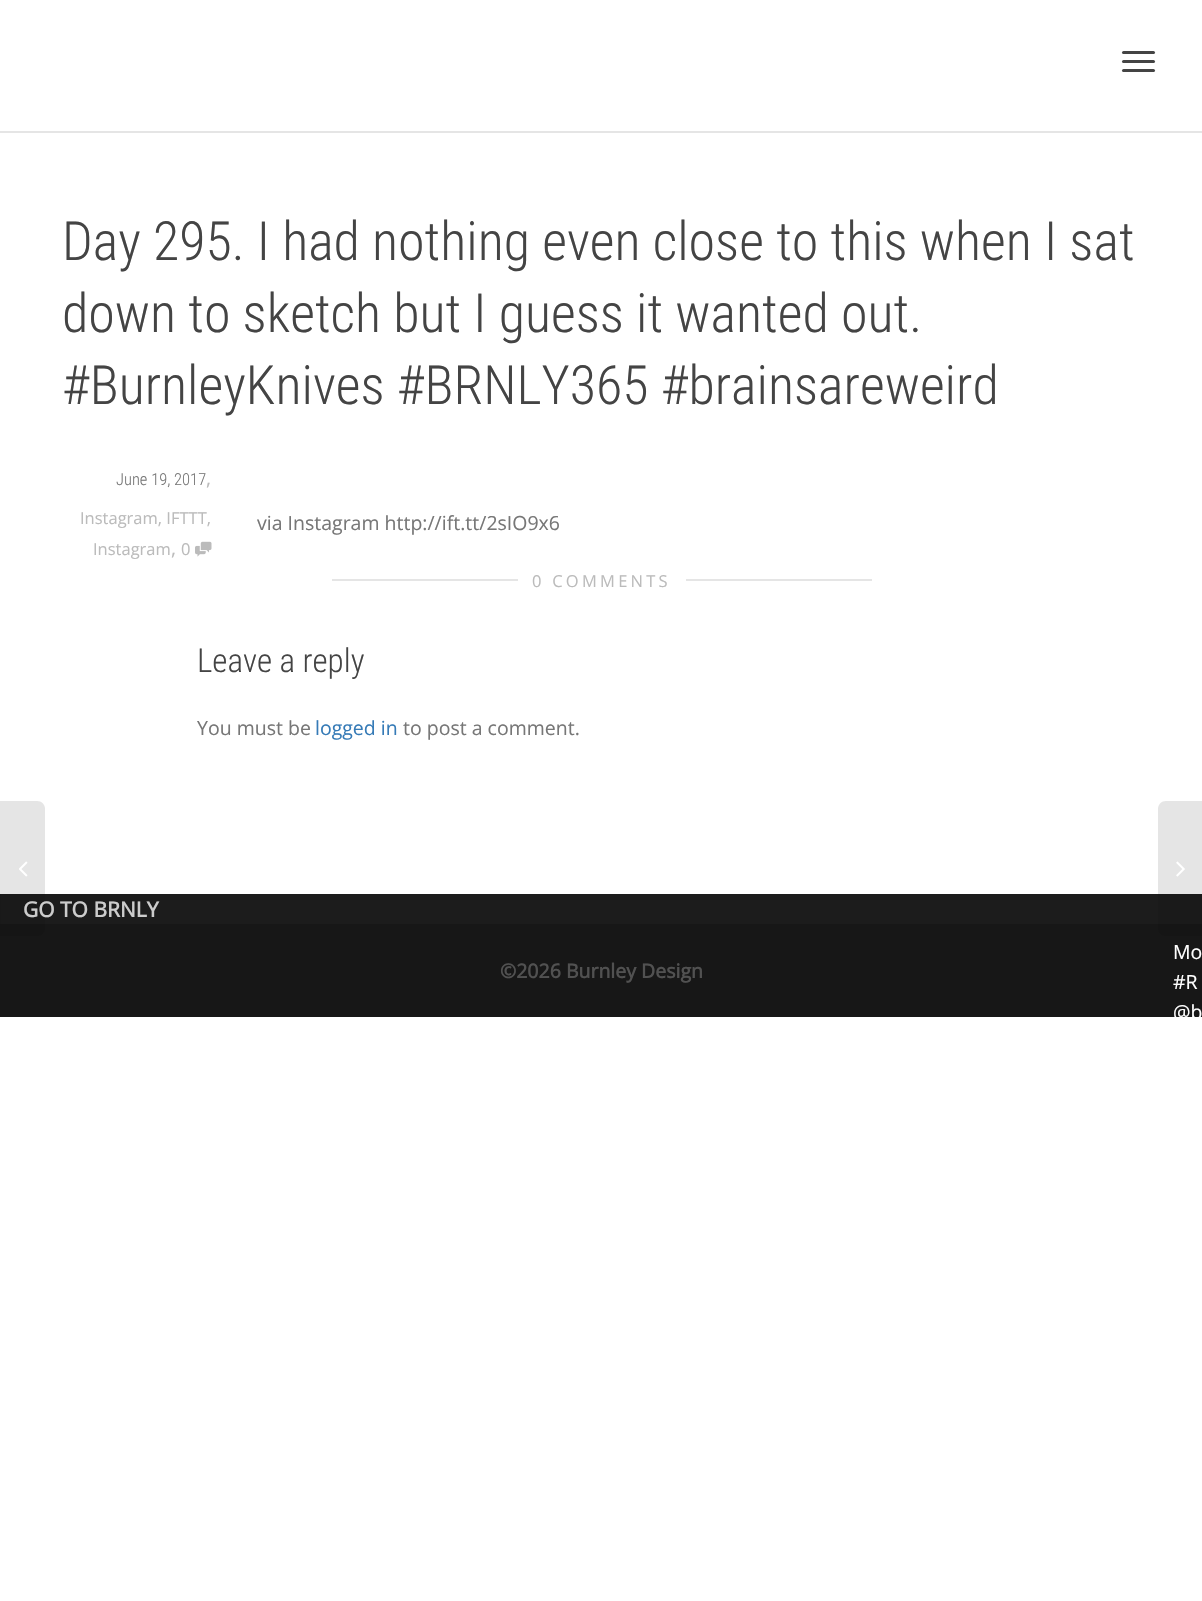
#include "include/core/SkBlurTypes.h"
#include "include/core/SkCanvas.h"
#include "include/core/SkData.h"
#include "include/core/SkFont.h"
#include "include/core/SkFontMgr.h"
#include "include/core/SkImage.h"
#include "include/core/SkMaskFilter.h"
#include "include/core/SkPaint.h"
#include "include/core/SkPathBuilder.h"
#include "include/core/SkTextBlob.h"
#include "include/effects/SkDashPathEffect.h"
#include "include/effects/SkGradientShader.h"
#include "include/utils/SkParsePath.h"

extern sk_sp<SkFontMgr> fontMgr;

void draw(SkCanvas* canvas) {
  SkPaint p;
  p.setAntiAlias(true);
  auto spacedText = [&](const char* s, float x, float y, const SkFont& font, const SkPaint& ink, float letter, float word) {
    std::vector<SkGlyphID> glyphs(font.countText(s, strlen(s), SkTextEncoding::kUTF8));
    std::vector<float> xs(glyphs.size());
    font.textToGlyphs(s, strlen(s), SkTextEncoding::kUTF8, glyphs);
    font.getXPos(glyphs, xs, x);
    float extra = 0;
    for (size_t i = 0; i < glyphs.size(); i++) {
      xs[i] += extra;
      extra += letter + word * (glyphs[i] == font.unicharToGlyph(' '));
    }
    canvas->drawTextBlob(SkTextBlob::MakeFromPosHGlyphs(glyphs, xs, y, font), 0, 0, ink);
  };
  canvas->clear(SK_ColorWHITE);
  p.setColor(SkColorSetRGB(229, 229, 229));
  canvas->drawRect(SkRect::MakeLTRB(0, 131, 1202, 133), p);
  p.setColor(SkColorSetRGB(68, 68, 68));
  canvas->drawRoundRect(SkRect::MakeLTRB(1122, 51, 1155, 54), 1.5f, 1.5f, p);
  canvas->drawRoundRect(SkRect::MakeLTRB(1122, 60, 1155, 63), 1.5f, 1.5f, p);
  canvas->drawRoundRect(SkRect::MakeLTRB(1122, 69, 1155, 72), 1.5f, 1.5f, p);
  canvas->drawImageRect(SkImages::DeferredFromEncodedData(SkData::MakeFromFileName("images/1.png")), SkRect::MakeLTRB(195, 541, 212, 557), SkSamplingOptions());
  p.setColor(SkColorSetRGB(229, 229, 229));
  canvas->drawRect(SkRect::MakeLTRB(332, 579, 872, 581), p);
  p.setColor(SK_ColorWHITE);
  canvas->drawRoundRect(SkRect::MakeLTRB(518, 566, 686, 594), 3, 3, p);
  p.setColor(SkColorSetRGB(28, 28, 28));
  canvas->drawRect(SkRect::MakeLTRB(0, 894, 1202, 924), p);
  p.setColor(SkColorSetRGB(23, 23, 23));
  canvas->drawRect(SkRect::MakeLTRB(0, 924, 1202, 1017), p);
  p.setColor(SkColorSetARGB(26, 0, 0, 0));
  canvas->drawPath(SkPathBuilder().moveTo(-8, 801).lineTo(37, 801).cubicTo(41.5f, 801, 45, 804.5f, 45, 809).lineTo(45, 928).cubicTo(45, 932.5f, 41.5f, 936, 37, 936).lineTo(-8, 936).close().detach(), p);
  canvas->drawImageRect(SkImages::DeferredFromEncodedData(SkData::MakeFromFileName("images/2.png")), SkRect::MakeLTRB(19, 861, 28, 877), SkSamplingOptions());
  canvas->drawPath(SkPathBuilder().moveTo(1166, 801).lineTo(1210, 801).lineTo(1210, 936).lineTo(1166, 936).cubicTo(1161.5f, 936, 1158, 932.5f, 1158, 928).lineTo(1158, 809).cubicTo(1158, 804.5f, 1161.5f, 801, 1166, 801).close().detach(), p);
  canvas->drawImageRect(SkImages::DeferredFromEncodedData(SkData::MakeFromFileName("images/3.png")), SkRect::MakeLTRB(1176, 861, 1185, 877), SkSamplingOptions());
  SkFont font1(fontMgr->matchFamilyStyle("Roboto Condensed", SkFontStyle(300, SkFontStyle::kNormal_Width, SkFontStyle::kUpright_Slant)), 54);
  font1.setSubpixel(true);
  p.setColor(SkColorSetRGB(68, 68, 68));
  canvas->drawString("Day 295. I had nothing even close to this when I sat", 62, 260, font1, p);
  canvas->drawString("down to sketch but I guess it wanted out.", 62, 332, font1, p);
  canvas->drawString("#BurnleyKnives #BRNLY365 #brainsareweird", 62, 404, font1, p);
  SkFont font2(fontMgr->matchFamilyStyle("Roboto Condensed", SkFontStyle(300, SkFontStyle::kNormal_Width, SkFontStyle::kUpright_Slant)), 16.5f);
  font2.setSubpixel(true);
  p.setColor(SkColorSetRGB(119, 119, 119));
  canvas->drawString("June 19, 2017", 116, 485, font2, p);
  SkFont font3(fontMgr->matchFamilyStyle("Open Sans", SkFontStyle::Normal()), 19.5f);
  font3.setSubpixel(true);
  p.setColor(SkColorSetRGB(187, 187, 187));
  canvas->drawString(",", 206, 485, font3, p);
  SkFont font4(fontMgr->matchFamilyStyle("Open Sans", SkFontStyle::Normal()), 16.5f);
  font4.setSubpixel(true);
  canvas->drawString("Instagram, IFTTT,", 80, 524, font4, p);
  canvas->drawString("Instagram", 93, 555, font4, p);
  canvas->drawString(",", 171, 555, font3, p);
  canvas->drawString("0", 181, 555, font4, p);
  p.setColor(SkColorSetRGB(119, 119, 119));
  canvas->drawString("via Instagram http://ift.tt/2sIO9x6", 257, 530, font3, p);
  p.setColor(SkColorSetRGB(187, 187, 187));
  spacedText("0 COMMENTS", 532, 587, font4, p, 3.25f, 0);
  SkFont font5(fontMgr->matchFamilyStyle("Roboto Condensed", SkFontStyle(300, SkFontStyle::kNormal_Width, SkFontStyle::kUpright_Slant)), 33);
  font5.setSubpixel(true);
  p.setColor(SkColorSetRGB(68, 68, 68));
  canvas->drawString("Leave a reply", 197, 672, font5, p);
  p.setColor(SkColorSetRGB(119, 119, 119));
  canvas->drawString("You must be", 197, 735, font3, p);
  p.setColor(SkColorSetRGB(54, 123, 183));
  canvas->drawString("logged in", 315, 735, font3, p);
  p.setColor(SkColorSetRGB(119, 119, 119));
  canvas->drawString("to post a comment.", 403, 735, font3, p);
  p.setColor(SK_ColorWHITE);
  canvas->drawString("Mo", 1173, 959, font3, p);
  canvas->drawString("#R", 1173, 989, font3, p);
  canvas->drawString("@b", 1173, 1019, font3, p);
  SkFont font6(fontMgr->matchFamilyStyle("Open Sans", SkFontStyle::Bold()), 21);
  font6.setSubpixel(true);
  p.setColor(SkColorSetRGB(204, 204, 204));
  canvas->drawString("GO TO BRNLY", 23, 917, font6, p);
  SkFont font7(fontMgr->matchFamilyStyle("Open Sans", SkFontStyle::Bold()), 19.5f);
  font7.setSubpixel(true);
  p.setColor(SkColorSetRGB(81, 81, 81));
  canvas->drawString("©2026 Burnley Design", 500, 978, font7, p);
}
